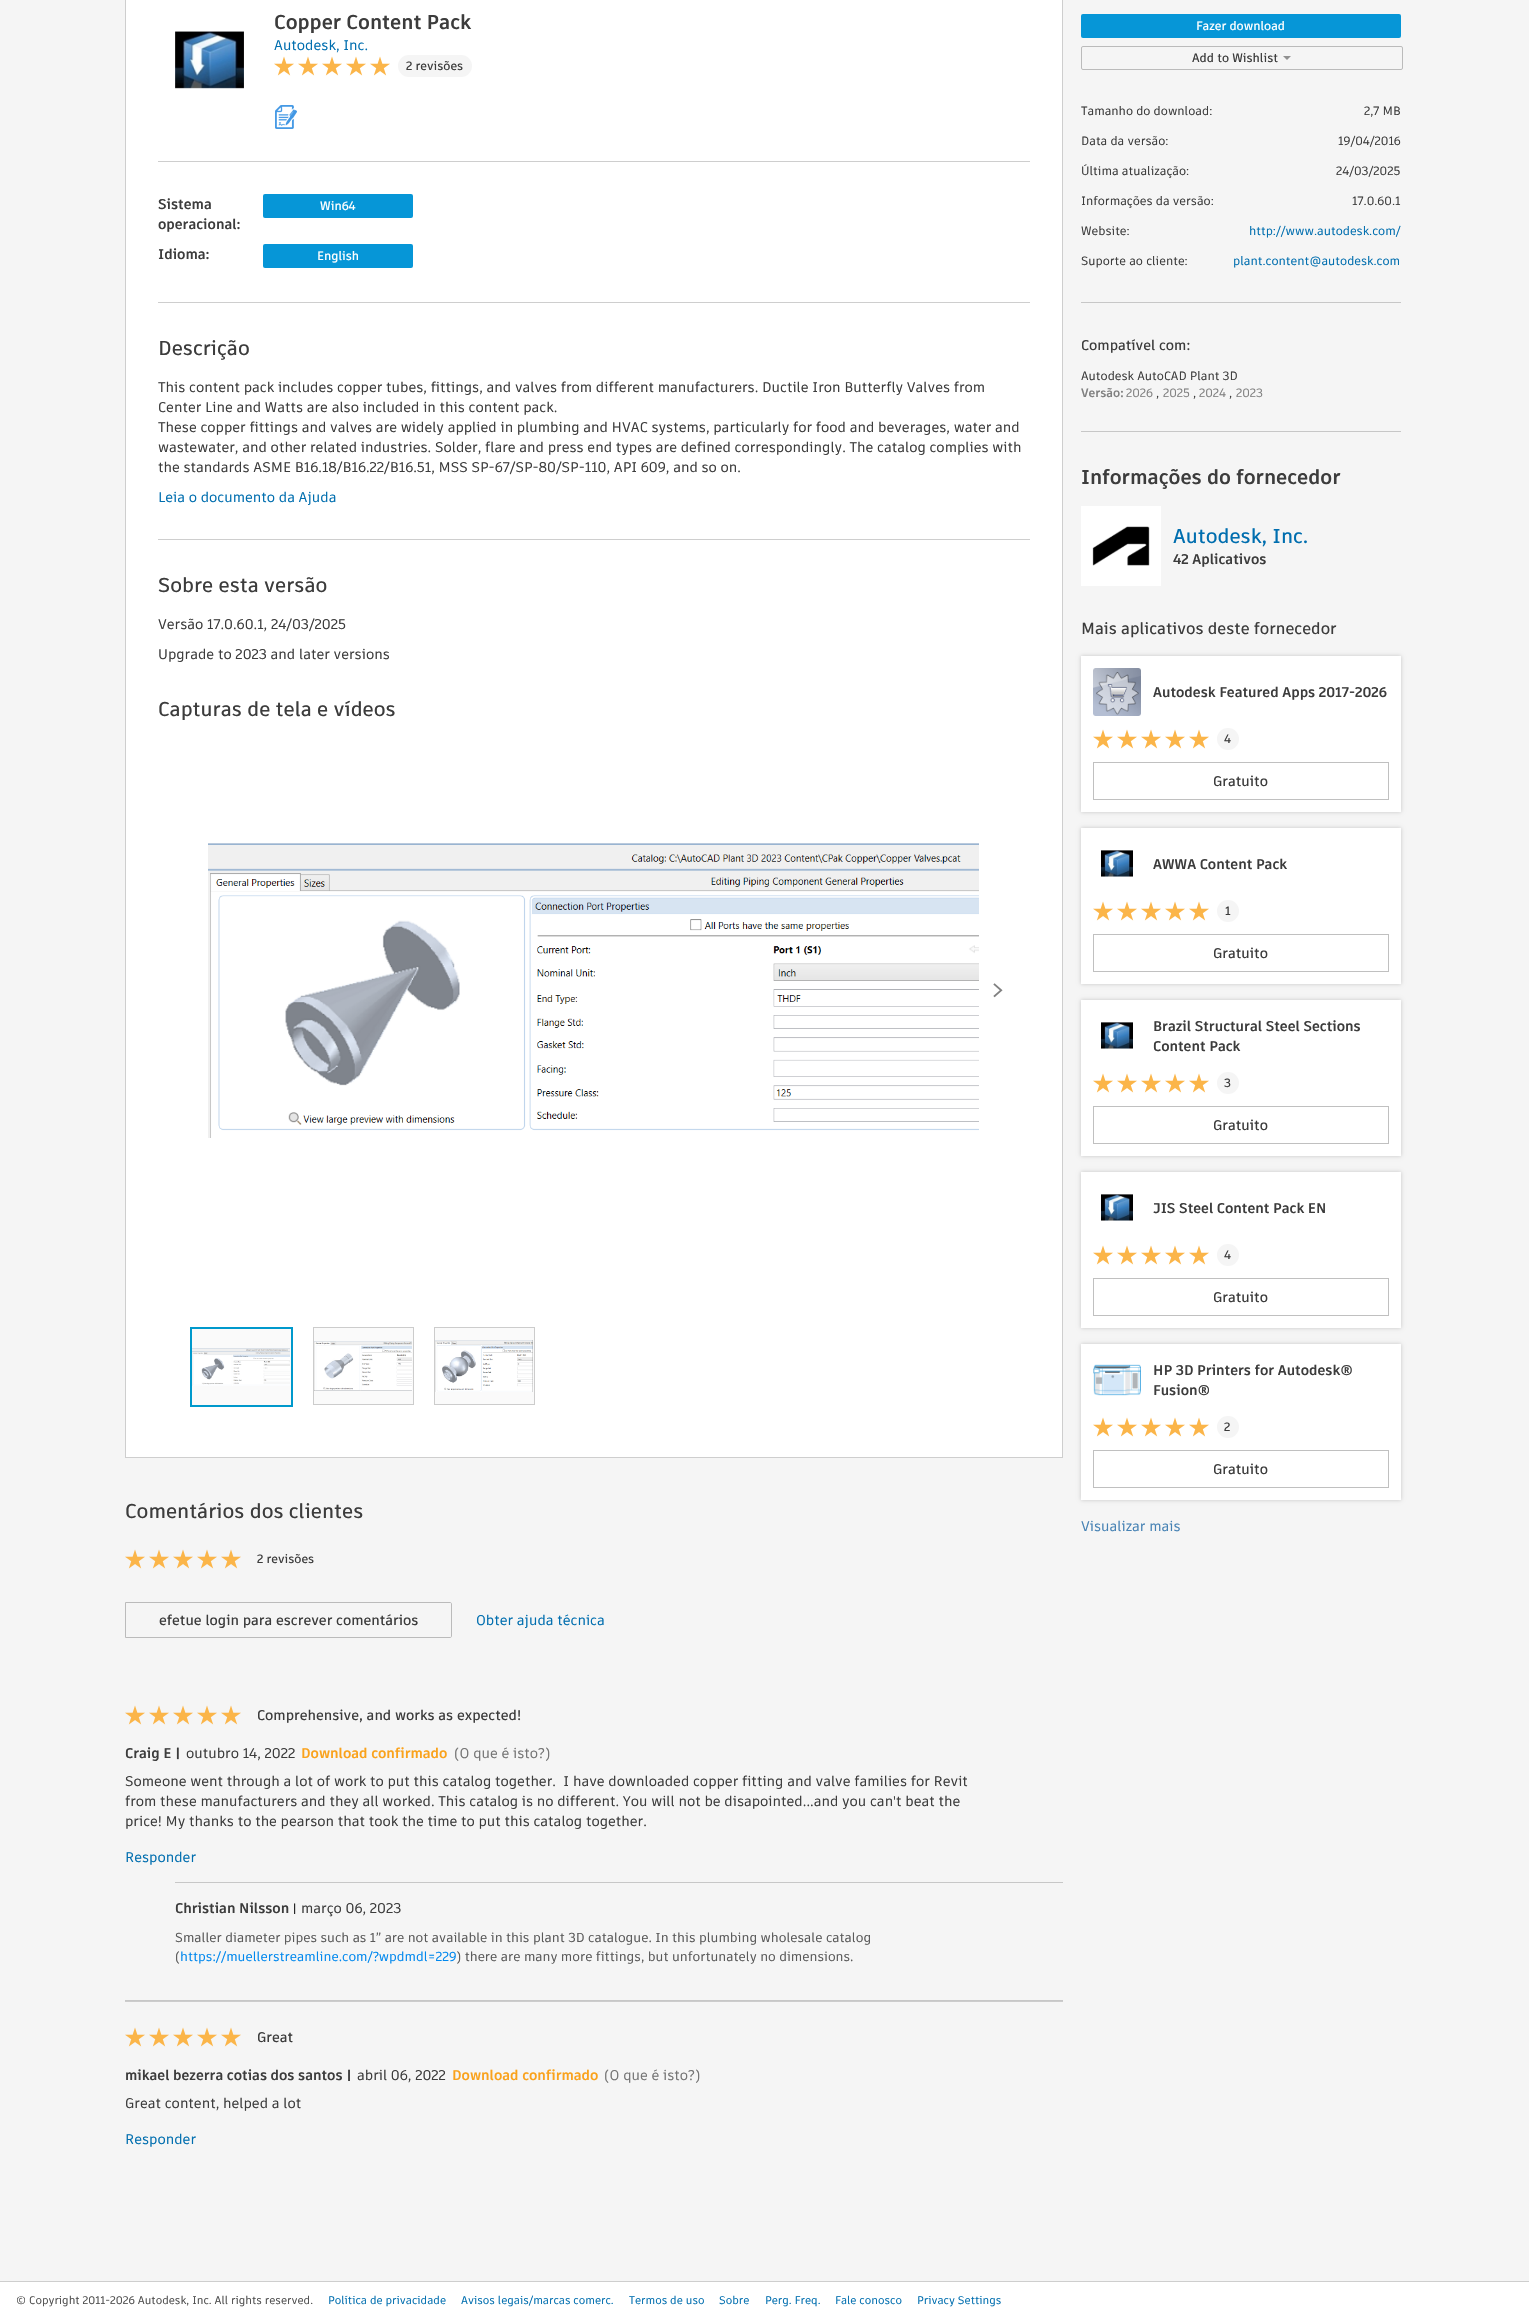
#include "include/core/SkBlurTypes.h"
#include "include/core/SkCanvas.h"
#include "include/core/SkData.h"
#include "include/core/SkFont.h"
#include "include/core/SkFontMgr.h"
#include "include/core/SkImage.h"
#include "include/core/SkMaskFilter.h"
#include "include/core/SkPaint.h"
#include "include/core/SkPathBuilder.h"
#include "include/core/SkTextBlob.h"
#include "include/effects/SkDashPathEffect.h"
#include "include/effects/SkGradientShader.h"
#include "include/utils/SkParsePath.h"

extern sk_sp<SkFontMgr> fontMgr;

void draw(SkCanvas* canvas) {
  SkPaint p;
  p.setAntiAlias(true);
  canvas->clear(SkColorSetRGB(245, 245, 245));
  p.setColor(SK_ColorWHITE);
  canvas->drawRect(SkRect::MakeLTRB(125.5f, -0.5f, 1062.5f, 1457.5f), p);
  p.setStyle(SkPaint::kStroke_Style);
  p.setStrokeWidth(1);
  p.setColor(SkColorSetRGB(206, 206, 206));
  canvas->drawRect(SkRect::MakeLTRB(125.5f, -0.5f, 1062.5f, 1457.5f), p);
  p.setStyle(SkPaint::kFill_Style);
  canvas->drawRect(SkRect::MakeLTRB(158, 161, 1030, 162), p);
  canvas->drawImageRect(SkImages::DeferredFromEncodedData(SkData::MakeFromFileName("images/1.png")), SkRect::MakeLTRB(175, 31, 244, 89), SkSamplingOptions());
  canvas->drawImageRect(SkImages::DeferredFromEncodedData(SkData::MakeFromFileName("images/2.png")), SkRect::MakeLTRB(274, 56, 294, 76), SkSamplingOptions());
  canvas->drawImageRect(SkImages::DeferredFromEncodedData(SkData::MakeFromFileName("images/2.png")), SkRect::MakeLTRB(298, 56, 318, 76), SkSamplingOptions());
  canvas->drawImageRect(SkImages::DeferredFromEncodedData(SkData::MakeFromFileName("images/2.png")), SkRect::MakeLTRB(322, 56, 342, 76), SkSamplingOptions());
  canvas->drawImageRect(SkImages::DeferredFromEncodedData(SkData::MakeFromFileName("images/2.png")), SkRect::MakeLTRB(346, 56, 366, 76), SkSamplingOptions());
  canvas->drawImageRect(SkImages::DeferredFromEncodedData(SkData::MakeFromFileName("images/2.png")), SkRect::MakeLTRB(370, 56, 390, 76), SkSamplingOptions());
  p.setColor(SkColorSetRGB(245, 245, 245));
  canvas->drawRoundRect(SkRect::MakeLTRB(398, 55, 472, 77), 11, 11, p);
  canvas->drawImageRect(SkImages::DeferredFromEncodedData(SkData::MakeFromFileName("images/3.png")), SkRect::MakeLTRB(275, 105, 297, 129), SkSamplingOptions());
  p.setColor(SkColorSetRGB(206, 206, 206));
  canvas->drawRect(SkRect::MakeLTRB(158, 302, 1030, 303), p);
  p.setColor(SkColorSetRGB(6, 150, 215));
  canvas->drawRoundRect(SkRect::MakeLTRB(263, 194, 413, 218), 2, 2, p);
  canvas->drawRoundRect(SkRect::MakeLTRB(263, 244, 413, 268), 2, 2, p);
  p.setColor(SkColorSetRGB(206, 206, 206));
  canvas->drawRect(SkRect::MakeLTRB(158, 539, 1030, 540), p);
  canvas->drawImageRect(SkImages::DeferredFromEncodedData(SkData::MakeFromFileName("images/4.png")), SkRect::MakeLTRB(208, 843, 979, 1138), SkSamplingOptions());
  canvas->drawImageRect(SkImages::DeferredFromEncodedData(SkData::MakeFromFileName("images/5.png")), SkRect::MakeLTRB(993, 983, 1003, 998), SkSamplingOptions());
  p.setColor(SkColorSetRGB(250, 250, 250));
  canvas->drawRect(SkRect::MakeLTRB(191, 1328, 292, 1406), p);
  p.setStyle(SkPaint::kStroke_Style);
  p.setStrokeWidth(2);
  p.setColor(SkColorSetRGB(0, 153, 204));
  canvas->drawRect(SkRect::MakeLTRB(191, 1328, 292, 1406), p);
  canvas->drawImageRect(SkImages::DeferredFromEncodedData(SkData::MakeFromFileName("images/6.png")), SkRect::MakeLTRB(192, 1348, 290, 1386), SkSamplingOptions());
  p.setStyle(SkPaint::kFill_Style);
  p.setColor(SkColorSetRGB(250, 250, 250));
  canvas->drawRect(SkRect::MakeLTRB(313.5f, 1327.5f, 413.5f, 1404.5f), p);
  p.setStyle(SkPaint::kStroke_Style);
  p.setStrokeWidth(1);
  p.setColor(SkColorSetRGB(204, 204, 204));
  canvas->drawRect(SkRect::MakeLTRB(313.5f, 1327.5f, 413.5f, 1404.5f), p);
  canvas->drawImageRect(SkImages::DeferredFromEncodedData(SkData::MakeFromFileName("images/7.png")), SkRect::MakeLTRB(314, 1341, 412, 1391), SkSamplingOptions());
  p.setStyle(SkPaint::kFill_Style);
  p.setColor(SkColorSetRGB(250, 250, 250));
  canvas->drawRect(SkRect::MakeLTRB(434.5f, 1327.5f, 534.5f, 1404.5f), p);
  p.setStyle(SkPaint::kStroke_Style);
  p.setColor(SkColorSetRGB(204, 204, 204));
  canvas->drawRect(SkRect::MakeLTRB(434.5f, 1327.5f, 534.5f, 1404.5f), p);
  canvas->drawImageRect(SkImages::DeferredFromEncodedData(SkData::MakeFromFileName("images/8.png")), SkRect::MakeLTRB(435, 1340, 533, 1392), SkSamplingOptions());
  canvas->drawImageRect(SkImages::DeferredFromEncodedData(SkData::MakeFromFileName("images/9.png")), SkRect::MakeLTRB(125, 1549, 145, 1569), SkSamplingOptions());
  canvas->drawImageRect(SkImages::DeferredFromEncodedData(SkData::MakeFromFileName("images/9.png")), SkRect::MakeLTRB(149, 1549, 169, 1569), SkSamplingOptions());
  canvas->drawImageRect(SkImages::DeferredFromEncodedData(SkData::MakeFromFileName("images/9.png")), SkRect::MakeLTRB(173, 1549, 193, 1569), SkSamplingOptions());
  canvas->drawImageRect(SkImages::DeferredFromEncodedData(SkData::MakeFromFileName("images/9.png")), SkRect::MakeLTRB(197, 1549, 217, 1569), SkSamplingOptions());
  canvas->drawImageRect(SkImages::DeferredFromEncodedData(SkData::MakeFromFileName("images/9.png")), SkRect::MakeLTRB(221, 1549, 241, 1569), SkSamplingOptions());
  p.setColor(SkColorSetRGB(187, 187, 187));
  canvas->drawPath(SkPathBuilder().moveTo(125.5f, 1602.5f).lineTo(450, 1602.5f).cubicTo(451, 1602.5f, 451.5f, 1603, 451.5f, 1604).lineTo(451.5f, 1636).cubicTo(451.5f, 1637, 451, 1637.5f, 450, 1637.5f).lineTo(125.5f, 1637.5f).close().detach(), p);
  p.setStyle(SkPaint::kFill_Style);
  p.setColor(SkColorSetRGB(199, 199, 199));
  canvas->drawRect(SkRect::MakeLTRB(125, 2000, 1063, 2001), p);
  canvas->drawImageRect(SkImages::DeferredFromEncodedData(SkData::MakeFromFileName("images/9.png")), SkRect::MakeLTRB(125, 1705, 145, 1725), SkSamplingOptions());
  canvas->drawImageRect(SkImages::DeferredFromEncodedData(SkData::MakeFromFileName("images/9.png")), SkRect::MakeLTRB(149, 1705, 169, 1725), SkSamplingOptions());
  canvas->drawImageRect(SkImages::DeferredFromEncodedData(SkData::MakeFromFileName("images/9.png")), SkRect::MakeLTRB(173, 1705, 193, 1725), SkSamplingOptions());
  canvas->drawImageRect(SkImages::DeferredFromEncodedData(SkData::MakeFromFileName("images/9.png")), SkRect::MakeLTRB(197, 1705, 217, 1725), SkSamplingOptions());
  canvas->drawImageRect(SkImages::DeferredFromEncodedData(SkData::MakeFromFileName("images/9.png")), SkRect::MakeLTRB(221, 1705, 241, 1725), SkSamplingOptions());
  canvas->drawRect(SkRect::MakeLTRB(175, 1882, 1063, 1883), p);
  p.setColor(SkColorSetRGB(204, 204, 204));
  canvas->drawRect(SkRect::MakeLTRB(125, 2001, 1063, 2002), p);
  canvas->drawImageRect(SkImages::DeferredFromEncodedData(SkData::MakeFromFileName("images/9.png")), SkRect::MakeLTRB(125, 2027, 145, 2047), SkSamplingOptions());
  canvas->drawImageRect(SkImages::DeferredFromEncodedData(SkData::MakeFromFileName("images/9.png")), SkRect::MakeLTRB(149, 2027, 169, 2047), SkSamplingOptions());
  canvas->drawImageRect(SkImages::DeferredFromEncodedData(SkData::MakeFromFileName("images/9.png")), SkRect::MakeLTRB(173, 2027, 193, 2047), SkSamplingOptions());
  canvas->drawImageRect(SkImages::DeferredFromEncodedData(SkData::MakeFromFileName("images/9.png")), SkRect::MakeLTRB(197, 2027, 217, 2047), SkSamplingOptions());
  canvas->drawImageRect(SkImages::DeferredFromEncodedData(SkData::MakeFromFileName("images/9.png")), SkRect::MakeLTRB(221, 2027, 241, 2047), SkSamplingOptions());
  p.setColor(SkColorSetRGB(199, 199, 199));
  canvas->drawRect(SkRect::MakeLTRB(1081, 431, 1401, 432), p);
  p.setColor(SkColorSetRGB(6, 150, 215));
  canvas->drawRoundRect(SkRect::MakeLTRB(1081, 14, 1401, 38), 2, 2, p);
  p.setStyle(SkPaint::kStroke_Style);
  p.setColor(SkColorSetRGB(187, 187, 187));
  canvas->drawRoundRect(SkRect::MakeLTRB(1081.5f, 46.5f, 1402.5f, 69.5f), 1.5f, 1.5f, p);
  p.setStyle(SkPaint::kFill_Style);
  p.setColor(SkColorSetRGB(145, 145, 145));
  canvas->drawPath(SkPathBuilder().moveTo(1283, 56).lineTo(1291, 56).lineTo(1287, 60).close().detach(), p);
  p.setColor(SkColorSetRGB(199, 199, 199));
  canvas->drawRect(SkRect::MakeLTRB(1081, 302, 1401, 303), p);
  canvas->drawImageRect(SkImages::DeferredFromEncodedData(SkData::MakeFromFileName("images/10.png")), SkRect::MakeLTRB(1081, 506, 1161, 586), SkSamplingOptions());
  p.setColor(SkColorSetARGB(51, 0, 0, 0));
  p.setMaskFilter(SkMaskFilter::MakeBlur(kNormal_SkBlurStyle, 2));
  canvas->drawRect(SkRect::MakeLTRB(1081, 656, 1401, 812), p);
  p.setMaskFilter(nullptr);
  p.setColor(SK_ColorWHITE);
  canvas->drawRect(SkRect::MakeLTRB(1081, 656, 1401, 812), p);
  canvas->drawImageRect(SkImages::DeferredFromEncodedData(SkData::MakeFromFileName("images/11.png")), SkRect::MakeLTRB(1093, 668, 1141, 716), SkSamplingOptions());
  canvas->drawImageRect(SkImages::DeferredFromEncodedData(SkData::MakeFromFileName("images/2.png")), SkRect::MakeLTRB(1093, 729, 1113, 749), SkSamplingOptions());
  canvas->drawImageRect(SkImages::DeferredFromEncodedData(SkData::MakeFromFileName("images/2.png")), SkRect::MakeLTRB(1117, 729, 1137, 749), SkSamplingOptions());
  canvas->drawImageRect(SkImages::DeferredFromEncodedData(SkData::MakeFromFileName("images/2.png")), SkRect::MakeLTRB(1141, 729, 1161, 749), SkSamplingOptions());
  canvas->drawImageRect(SkImages::DeferredFromEncodedData(SkData::MakeFromFileName("images/2.png")), SkRect::MakeLTRB(1165, 729, 1185, 749), SkSamplingOptions());
  canvas->drawImageRect(SkImages::DeferredFromEncodedData(SkData::MakeFromFileName("images/2.png")), SkRect::MakeLTRB(1189, 729, 1209, 749), SkSamplingOptions());
  p.setColor(SkColorSetRGB(245, 245, 245));
  canvas->drawCircle(1228, 739, 11, p);
  p.setStyle(SkPaint::kStroke_Style);
  p.setColor(SkColorSetRGB(192, 192, 192));
  canvas->drawRect(SkRect::MakeLTRB(1093.5f, 762.5f, 1388.5f, 799.5f), p);
  p.setStyle(SkPaint::kFill_Style);
  p.setColor(SkColorSetARGB(51, 0, 0, 0));
  p.setMaskFilter(SkMaskFilter::MakeBlur(kNormal_SkBlurStyle, 2));
  canvas->drawRect(SkRect::MakeLTRB(1081, 828, 1401, 984), p);
  p.setMaskFilter(nullptr);
  p.setColor(SK_ColorWHITE);
  canvas->drawRect(SkRect::MakeLTRB(1081, 828, 1401, 984), p);
  canvas->drawImageRect(SkImages::DeferredFromEncodedData(SkData::MakeFromFileName("images/12.png")), SkRect::MakeLTRB(1101, 850, 1133, 877), SkSamplingOptions());
  canvas->drawImageRect(SkImages::DeferredFromEncodedData(SkData::MakeFromFileName("images/2.png")), SkRect::MakeLTRB(1093, 901, 1113, 921), SkSamplingOptions());
  canvas->drawImageRect(SkImages::DeferredFromEncodedData(SkData::MakeFromFileName("images/2.png")), SkRect::MakeLTRB(1117, 901, 1137, 921), SkSamplingOptions());
  canvas->drawImageRect(SkImages::DeferredFromEncodedData(SkData::MakeFromFileName("images/2.png")), SkRect::MakeLTRB(1141, 901, 1161, 921), SkSamplingOptions());
  canvas->drawImageRect(SkImages::DeferredFromEncodedData(SkData::MakeFromFileName("images/2.png")), SkRect::MakeLTRB(1165, 901, 1185, 921), SkSamplingOptions());
  canvas->drawImageRect(SkImages::DeferredFromEncodedData(SkData::MakeFromFileName("images/2.png")), SkRect::MakeLTRB(1189, 901, 1209, 921), SkSamplingOptions());
  p.setColor(SkColorSetRGB(245, 245, 245));
  canvas->drawCircle(1228, 911, 11, p);
  p.setStyle(SkPaint::kStroke_Style);
  p.setColor(SkColorSetRGB(192, 192, 192));
  canvas->drawRect(SkRect::MakeLTRB(1093.5f, 934.5f, 1388.5f, 971.5f), p);
  p.setStyle(SkPaint::kFill_Style);
  p.setColor(SkColorSetARGB(51, 0, 0, 0));
  p.setMaskFilter(SkMaskFilter::MakeBlur(kNormal_SkBlurStyle, 2));
  canvas->drawRect(SkRect::MakeLTRB(1081, 1000, 1401, 1156), p);
  p.setMaskFilter(nullptr);
  p.setColor(SK_ColorWHITE);
  canvas->drawRect(SkRect::MakeLTRB(1081, 1000, 1401, 1156), p);
  canvas->drawImageRect(SkImages::DeferredFromEncodedData(SkData::MakeFromFileName("images/12.png")), SkRect::MakeLTRB(1101, 1022, 1133, 1049), SkSamplingOptions());
  canvas->drawImageRect(SkImages::DeferredFromEncodedData(SkData::MakeFromFileName("images/2.png")), SkRect::MakeLTRB(1093, 1073, 1113, 1093), SkSamplingOptions());
  canvas->drawImageRect(SkImages::DeferredFromEncodedData(SkData::MakeFromFileName("images/2.png")), SkRect::MakeLTRB(1117, 1073, 1137, 1093), SkSamplingOptions());
  canvas->drawImageRect(SkImages::DeferredFromEncodedData(SkData::MakeFromFileName("images/2.png")), SkRect::MakeLTRB(1141, 1073, 1161, 1093), SkSamplingOptions());
  canvas->drawImageRect(SkImages::DeferredFromEncodedData(SkData::MakeFromFileName("images/2.png")), SkRect::MakeLTRB(1165, 1073, 1185, 1093), SkSamplingOptions());
  canvas->drawImageRect(SkImages::DeferredFromEncodedData(SkData::MakeFromFileName("images/2.png")), SkRect::MakeLTRB(1189, 1073, 1209, 1093), SkSamplingOptions());
  p.setColor(SkColorSetRGB(245, 245, 245));
  canvas->drawCircle(1228, 1083, 11, p);
  p.setStyle(SkPaint::kStroke_Style);
  p.setColor(SkColorSetRGB(192, 192, 192));
  canvas->drawRect(SkRect::MakeLTRB(1093.5f, 1106.5f, 1388.5f, 1143.5f), p);
  p.setStyle(SkPaint::kFill_Style);
  p.setColor(SkColorSetARGB(51, 0, 0, 0));
  p.setMaskFilter(SkMaskFilter::MakeBlur(kNormal_SkBlurStyle, 2));
  canvas->drawRect(SkRect::MakeLTRB(1081, 1172, 1401, 1328), p);
  p.setMaskFilter(nullptr);
  p.setColor(SK_ColorWHITE);
  canvas->drawRect(SkRect::MakeLTRB(1081, 1172, 1401, 1328), p);
  canvas->drawImageRect(SkImages::DeferredFromEncodedData(SkData::MakeFromFileName("images/12.png")), SkRect::MakeLTRB(1101, 1194, 1133, 1221), SkSamplingOptions());
  canvas->drawImageRect(SkImages::DeferredFromEncodedData(SkData::MakeFromFileName("images/2.png")), SkRect::MakeLTRB(1093, 1245, 1113, 1265), SkSamplingOptions());
  canvas->drawImageRect(SkImages::DeferredFromEncodedData(SkData::MakeFromFileName("images/2.png")), SkRect::MakeLTRB(1117, 1245, 1137, 1265), SkSamplingOptions());
  canvas->drawImageRect(SkImages::DeferredFromEncodedData(SkData::MakeFromFileName("images/2.png")), SkRect::MakeLTRB(1141, 1245, 1161, 1265), SkSamplingOptions());
  canvas->drawImageRect(SkImages::DeferredFromEncodedData(SkData::MakeFromFileName("images/2.png")), SkRect::MakeLTRB(1165, 1245, 1185, 1265), SkSamplingOptions());
  canvas->drawImageRect(SkImages::DeferredFromEncodedData(SkData::MakeFromFileName("images/2.png")), SkRect::MakeLTRB(1189, 1245, 1209, 1265), SkSamplingOptions());
  p.setColor(SkColorSetRGB(245, 245, 245));
  canvas->drawCircle(1228, 1255, 11, p);
  p.setStyle(SkPaint::kStroke_Style);
  p.setColor(SkColorSetRGB(192, 192, 192));
  canvas->drawRect(SkRect::MakeLTRB(1093.5f, 1278.5f, 1388.5f, 1315.5f), p);
  p.setStyle(SkPaint::kFill_Style);
  p.setColor(SkColorSetARGB(51, 0, 0, 0));
  p.setMaskFilter(SkMaskFilter::MakeBlur(kNormal_SkBlurStyle, 2));
  canvas->drawRect(SkRect::MakeLTRB(1081, 1344, 1401, 1500), p);
  p.setMaskFilter(nullptr);
  p.setColor(SK_ColorWHITE);
  canvas->drawRect(SkRect::MakeLTRB(1081, 1344, 1401, 1500), p);
  canvas->drawImageRect(SkImages::DeferredFromEncodedData(SkData::MakeFromFileName("images/13.png")), SkRect::MakeLTRB(1093, 1364, 1141, 1396), SkSamplingOptions());
  canvas->drawImageRect(SkImages::DeferredFromEncodedData(SkData::MakeFromFileName("images/2.png")), SkRect::MakeLTRB(1093, 1417, 1113, 1437), SkSamplingOptions());
  canvas->drawImageRect(SkImages::DeferredFromEncodedData(SkData::MakeFromFileName("images/2.png")), SkRect::MakeLTRB(1117, 1417, 1137, 1437), SkSamplingOptions());
  canvas->drawImageRect(SkImages::DeferredFromEncodedData(SkData::MakeFromFileName("images/2.png")), SkRect::MakeLTRB(1141, 1417, 1161, 1437), SkSamplingOptions());
  canvas->drawImageRect(SkImages::DeferredFromEncodedData(SkData::MakeFromFileName("images/2.png")), SkRect::MakeLTRB(1165, 1417, 1185, 1437), SkSamplingOptions());
  canvas->drawImageRect(SkImages::DeferredFromEncodedData(SkData::MakeFromFileName("images/2.png")), SkRect::MakeLTRB(1189, 1417, 1209, 1437), SkSamplingOptions());
  p.setColor(SkColorSetRGB(245, 245, 245));
  canvas->drawCircle(1228, 1427, 11, p);
  p.setStyle(SkPaint::kStroke_Style);
  p.setColor(SkColorSetRGB(192, 192, 192));
  canvas->drawRect(SkRect::MakeLTRB(1093.5f, 1450.5f, 1388.5f, 1487.5f), p);
  p.setStyle(SkPaint::kFill_Style);
  p.setColor(SK_ColorWHITE);
  canvas->drawRect(SkRect::MakeLTRB(0, 2282, 1529, 2318), p);
  p.setColor(SkColorSetRGB(206, 206, 206));
  canvas->drawRect(SkRect::MakeLTRB(0, 2281, 1529, 2282), p);
  SkFont font1(fontMgr->matchFamilyStyle("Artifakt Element", SkFontStyle::Bold()), 20);
  font1.setSubpixel(true);
  p.setColor(SkColorSetRGB(60, 60, 60));
  canvas->drawString("Copper Content Pack", 274, 29, font1, p);
  SkFont font2(fontMgr->matchFamilyStyle("Artifakt Element", SkFontStyle(500, SkFontStyle::kNormal_Width, SkFontStyle::kUpright_Slant)), 14);
  font2.setSubpixel(true);
  p.setColor(SkColorSetRGB(0, 110, 175));
  canvas->drawString("Autodesk, Inc.", 274, 50, font2, p);
  SkFont font3(fontMgr->matchFamilyStyle("Artifakt Element", SkFontStyle(600, SkFontStyle::kNormal_Width, SkFontStyle::kUpright_Slant)), 12);
  font3.setSubpixel(true);
  p.setColor(SkColorSetRGB(60, 60, 60));
  canvas->drawString("2 revisões", 406, 70, font3, p);
  SkFont font4(fontMgr->matchFamilyStyle("Artifakt Element", SkFontStyle::Bold()), 14);
  font4.setSubpixel(true);
  canvas->drawString("Sistema", 158, 209, font4, p);
  canvas->drawString("operacional:", 158, 229, font4, p);
  p.setColor(SK_ColorWHITE);
  canvas->drawString("Win64", 320, 210, font3, p);
  p.setColor(SkColorSetRGB(60, 60, 60));
  canvas->drawString("Idioma:", 158, 259, font4, p);
  p.setColor(SK_ColorWHITE);
  canvas->drawString("English", 317, 260, font3, p);
  SkFont font5(fontMgr->matchFamilyStyle("Artifakt Element", SkFontStyle(600, SkFontStyle::kNormal_Width, SkFontStyle::kUpright_Slant)), 20);
  font5.setSubpixel(true);
  p.setColor(SkColorSetRGB(60, 60, 60));
  canvas->drawString("Descrição", 158, 355, font5, p);
  canvas->drawString("This content pack includes copper tubes, fittings, and valves from different manufacturers. Ductile Iron Butterfly Valves from", 158, 392, font2, p);
  canvas->drawString("Center Line and Watts are also included in this content pack.", 158, 412, font2, p);
  canvas->drawString("These copper fittings and valves are widely applied in plumbing and HVAC systems, particularly for food and beverages, water and", 158, 432, font2, p);
  canvas->drawString("wastewater, and other related industries. Solder, flare and press end types are defined correspondingly. The catalog complies with", 158, 452, font2, p);
  canvas->drawString("the standards ASME B16.18/B16.22/B16.51, MSS SP-67/SP-80/SP-110, API 609, and so on.", 158, 472, font2, p);
  p.setColor(SkColorSetRGB(0, 110, 175));
  canvas->drawString("Leia o documento da Ajuda", 158, 502, font2, p);
  p.setColor(SkColorSetRGB(60, 60, 60));
  canvas->drawString("Sobre esta versão", 158, 592, font5, p);
  canvas->drawString("Versão 17.0.60.1, 24/03/2025", 158, 629, font2, p);
  canvas->drawString("Upgrade to 2023 and later versions", 158, 659, font2, p);
  canvas->drawString("Capturas de tela e vídeos", 158, 716, font5, p);
  canvas->drawString("Comentários dos clientes", 125, 1518, font5, p);
  canvas->drawString("2 revisões", 257, 1563, font3, p);
  SkFont font6(fontMgr->matchFamilyStyle("Artifakt Element", SkFontStyle(600, SkFontStyle::kNormal_Width, SkFontStyle::kUpright_Slant)), 14);
  font6.setSubpixel(true);
  canvas->drawString("efetue login para escrever comentários", 159, 1625, font6, p);
  p.setColor(SkColorSetRGB(0, 110, 175));
  canvas->drawString("Obter ajuda técnica", 476, 1625, font2, p);
  p.setColor(SkColorSetRGB(60, 60, 60));
  canvas->drawString("Comprehensive, and works as expected!", 257, 1720, font6, p);
  canvas->drawString("Craig E |", 125, 1758, font4, p);
  canvas->drawString("outubro 14, 2022", 186, 1758, font2, p);
  p.setColor(SkColorSetRGB(250, 162, 27));
  canvas->drawString("Download confirmado", 301, 1758, font4, p);
  p.setColor(SkColorSetRGB(116, 116, 116));
  canvas->drawString("(O que é isto?)", 454, 1758, font2, p);
  p.setColor(SkColorSetRGB(60, 60, 60));
  canvas->drawString("Someone went through a lot of work to put this catalog together.  I have downloaded copper fitting and valve families for Revit", 125, 1786, font2, p);
  canvas->drawString("from these manufacturers and they all worked. This catalog is no different. You will not be disapointed...and you can't beat the", 125, 1806, font2, p);
  canvas->drawString("price! My thanks to the pearson that took the time to put this catalog together.", 125, 1826, font2, p);
  p.setColor(SkColorSetRGB(0, 110, 175));
  canvas->drawString("Responder", 125, 1862, font2, p);
  p.setColor(SkColorSetRGB(60, 60, 60));
  canvas->drawString("Christian Nilsson", 175, 1913, font4, p);
  SkFont font7(fontMgr->matchFamilyStyle("Artifakt Element", SkFontStyle(500, SkFontStyle::kNormal_Width, SkFontStyle::kUpright_Slant)), 13);
  font7.setSubpixel(true);
  p.setColor(SkColorSetRGB(34, 34, 34));
  canvas->drawString("|", 292, 1913, font7, p);
  p.setColor(SkColorSetRGB(60, 60, 60));
  canvas->drawString("março 06, 2023", 301, 1913, font2, p);
  p.setColor(SkColorSetRGB(89, 89, 89));
  canvas->drawString("Smaller diameter pipes such as 1” are not available in this plant 3D catalogue. In this plumbing wholesale catalog", 175, 1942, font7, p);
  canvas->drawString("(", 175, 1961, font7, p);
  p.setColor(SkColorSetRGB(0, 136, 238));
  canvas->drawString("https://muellerstreamline.com/?wpdmdl=229", 180, 1961, font7, p);
  p.setColor(SkColorSetRGB(89, 89, 89));
  canvas->drawString(") there are many more fittings, but unfortunately no dimensions.", 456, 1961, font7, p);
  p.setColor(SkColorSetRGB(60, 60, 60));
  canvas->drawString("Great", 257, 2042, font6, p);
  canvas->drawString("mikael bezerra cotias dos santos |", 125, 2080, font4, p);
  canvas->drawString("abril 06, 2022", 357, 2080, font2, p);
  p.setColor(SkColorSetRGB(250, 162, 27));
  canvas->drawString("Download confirmado", 452, 2080, font4, p);
  p.setColor(SkColorSetRGB(116, 116, 116));
  canvas->drawString("(O que é isto?)", 604, 2080, font2, p);
  p.setColor(SkColorSetRGB(60, 60, 60));
  canvas->drawString("Great content, helped a lot", 125, 2108, font2, p);
  p.setColor(SkColorSetRGB(0, 110, 175));
  canvas->drawString("Responder", 125, 2144, font2, p);
  p.setColor(SK_ColorWHITE);
  canvas->drawString("Fazer download", 1196, 30, font3, p);
  p.setColor(SkColorSetRGB(60, 60, 60));
  canvas->drawString("Add to Wishlist", 1192, 62, font3, p);
  SkFont font8(fontMgr->matchFamilyStyle("Artifakt Element", SkFontStyle(500, SkFontStyle::kNormal_Width, SkFontStyle::kUpright_Slant)), 12);
  font8.setSubpixel(true);
  canvas->drawString("Tamanho do download:", 1081, 115, font8, p);
  canvas->drawString("2,7 MB", 1364, 115, font8, p);
  canvas->drawString("Data da versão:", 1081, 145, font8, p);
  canvas->drawString("19/04/2016", 1338, 145, font8, p);
  canvas->drawString("Última atualização:", 1081, 175, font8, p);
  canvas->drawString("24/03/2025", 1336, 175, font8, p);
  canvas->drawString("Informações da versão:", 1081, 205, font8, p);
  canvas->drawString("17.0.60.1", 1352, 205, font8, p);
  canvas->drawString("Website:", 1081, 235, font8, p);
  p.setColor(SkColorSetRGB(0, 110, 175));
  canvas->drawString("http://www.autodesk.com/", 1249, 235, font8, p);
  p.setColor(SkColorSetRGB(60, 60, 60));
  canvas->drawString("Suporte ao cliente:", 1081, 265, font8, p);
  p.setColor(SkColorSetRGB(0, 110, 175));
  canvas->drawString("plant.content@autodesk.com", 1233, 265, font8, p);
  p.setColor(SkColorSetRGB(60, 60, 60));
  canvas->drawString("Compatível com:", 1081, 350, font6, p);
  canvas->drawString("Autodesk AutoCAD Plant 3D", 1081, 380, font8, p);
  SkFont font9(fontMgr->matchFamilyStyle("Artifakt Element", SkFontStyle::Bold()), 12);
  font9.setSubpixel(true);
  p.setColor(SkColorSetRGB(128, 128, 128));
  canvas->drawString("Versão:", 1081, 397, font9, p);
  canvas->drawString("2026", 1126, 397, font8, p);
  p.setColor(SkColorSetRGB(60, 60, 60));
  canvas->drawString(",", 1156, 397, font8, p);
  p.setColor(SkColorSetRGB(128, 128, 128));
  canvas->drawString("2025", 1163, 397, font8, p);
  p.setColor(SkColorSetRGB(60, 60, 60));
  canvas->drawString(",", 1193, 397, font8, p);
  p.setColor(SkColorSetRGB(128, 128, 128));
  canvas->drawString("2024", 1199, 397, font8, p);
  p.setColor(SkColorSetRGB(60, 60, 60));
  canvas->drawString(",", 1229, 397, font8, p);
  p.setColor(SkColorSetRGB(128, 128, 128));
  canvas->drawString("2023", 1236, 397, font8, p);
  p.setColor(SkColorSetRGB(60, 60, 60));
  canvas->drawString("Informações do fornecedor", 1081, 484, font1, p);
  p.setColor(SkColorSetRGB(0, 110, 175));
  canvas->drawString("Autodesk, Inc.", 1173, 543, font5, p);
  p.setColor(SkColorSetRGB(60, 60, 60));
  canvas->drawString("42 Aplicativos", 1173, 564, font4, p);
  SkFont font10(fontMgr->matchFamilyStyle("Artifakt Element", SkFontStyle(600, SkFontStyle::kNormal_Width, SkFontStyle::kUpright_Slant)), 16);
  font10.setSubpixel(true);
  canvas->drawString("Mais aplicativos deste fornecedor", 1081, 634, font10, p);
  canvas->drawString("Autodesk Featured Apps 2017-2026", 1153, 697, font4, p);
  canvas->drawString("4", 1224, 743, font3, p);
  canvas->drawString("Gratuito", 1213, 786, font6, p);
  canvas->drawString("AWWA Content Pack", 1153, 869, font4, p);
  canvas->drawString("1", 1225, 915, font3, p);
  canvas->drawString("Gratuito", 1213, 958, font6, p);
  canvas->drawString("Brazil Structural Steel Sections", 1153, 1031, font4, p);
  canvas->drawString("Content Pack", 1153, 1051, font4, p);
  canvas->drawString("3", 1224, 1087, font3, p);
  canvas->drawString("Gratuito", 1213, 1130, font6, p);
  canvas->drawString("JIS Steel Content Pack EN", 1153, 1213, font4, p);
  canvas->drawString("4", 1224, 1259, font3, p);
  canvas->drawString("Gratuito", 1213, 1302, font6, p);
  canvas->drawString("HP 3D Printers for Autodesk®", 1153, 1375, font4, p);
  canvas->drawString("Fusion®", 1153, 1395, font4, p);
  canvas->drawString("2", 1224, 1431, font3, p);
  canvas->drawString("Gratuito", 1213, 1474, font6, p);
  p.setColor(SkColorSetRGB(70, 130, 180));
  canvas->drawString("Visualizar mais", 1081, 1531, font2, p);
  SkFont font11(fontMgr->matchFamilyStyle("Artifakt Element", SkFontStyle(500, SkFontStyle::kNormal_Width, SkFontStyle::kUpright_Slant)), 11);
  font11.setSubpixel(true);
  p.setColor(SkColorSetRGB(77, 77, 77));
  canvas->drawString("© Copyright 2011-2026 Autodesk, Inc. All rights reserved.", 16, 2304, font11, p);
  p.setColor(SkColorSetRGB(0, 110, 175));
  canvas->drawString("Política de privacidade", 328, 2304, font11, p);
  canvas->drawString("Avisos legais/marcas comerc.", 461, 2304, font11, p);
  canvas->drawString("Termos de uso", 629, 2304, font11, p);
  canvas->drawString("Sobre", 719, 2304, font11, p);
  canvas->drawString("Perg. Freq.", 765, 2304, font11, p);
  canvas->drawString("Fale conosco", 835, 2304, font11, p);
  canvas->drawString("Privacy Settings", 917, 2304, font11, p);
}
